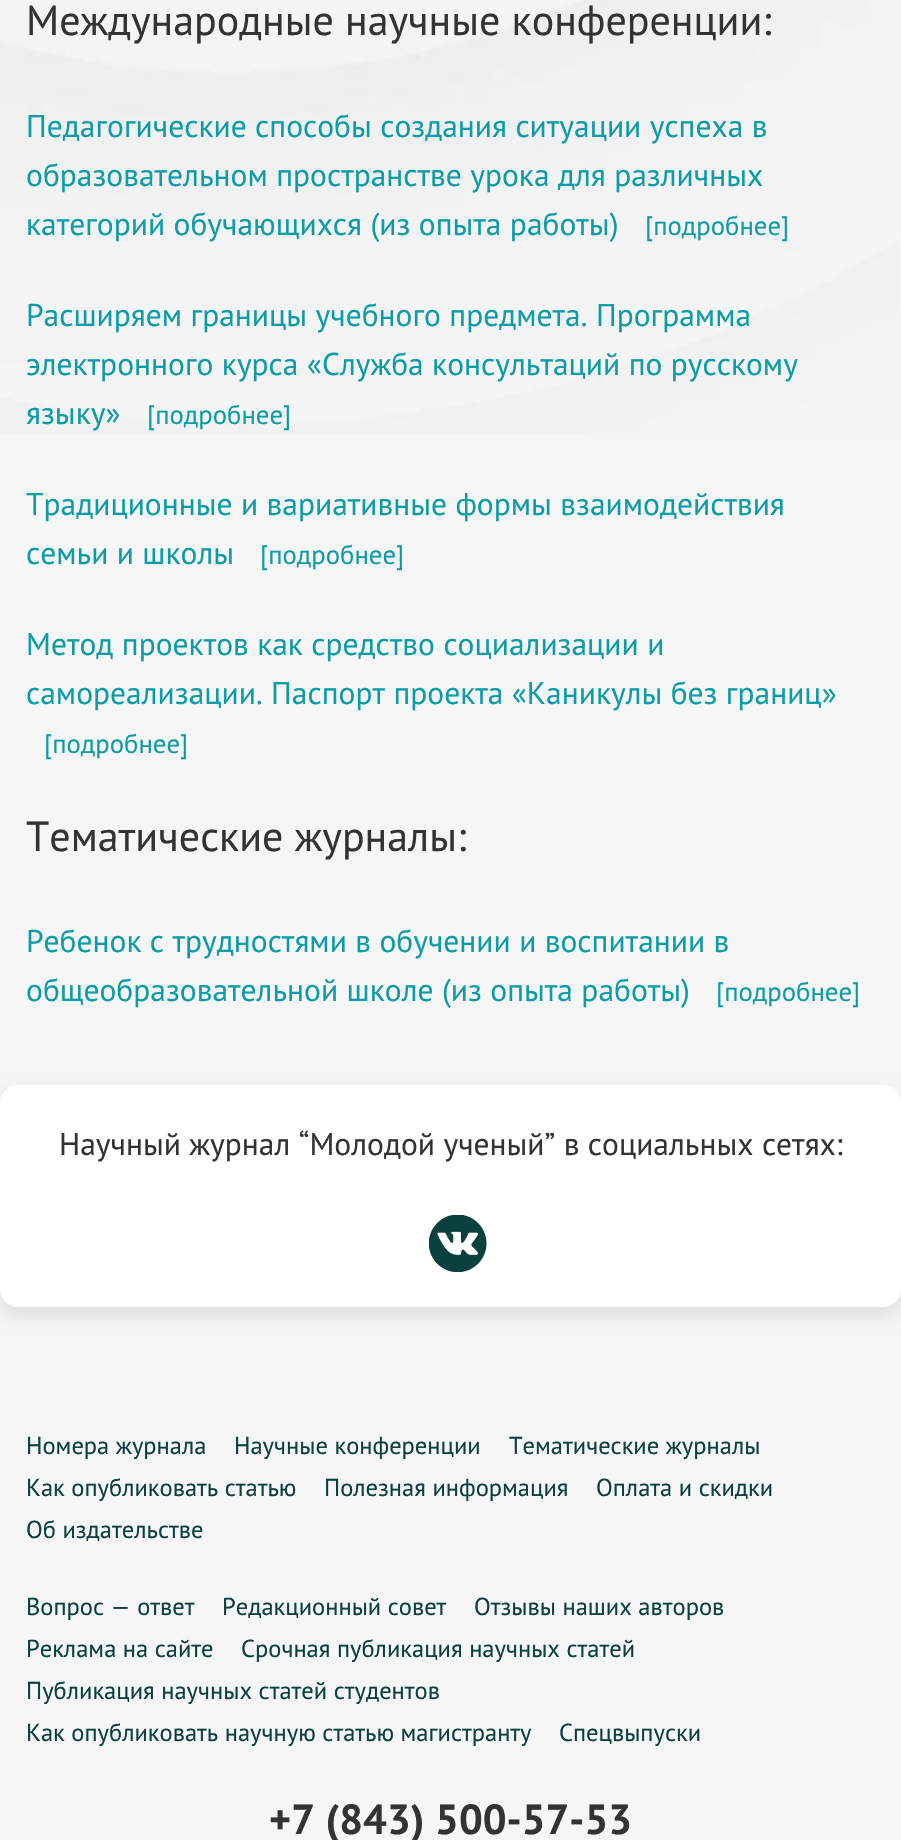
#include "include/core/SkBlurTypes.h"
#include "include/core/SkCanvas.h"
#include "include/core/SkData.h"
#include "include/core/SkFont.h"
#include "include/core/SkFontMgr.h"
#include "include/core/SkImage.h"
#include "include/core/SkMaskFilter.h"
#include "include/core/SkPaint.h"
#include "include/core/SkPathBuilder.h"
#include "include/core/SkTextBlob.h"
#include "include/effects/SkDashPathEffect.h"
#include "include/effects/SkGradientShader.h"
#include "include/utils/SkParsePath.h"

extern sk_sp<SkFontMgr> fontMgr;

void draw(SkCanvas* canvas) {
  SkPaint p;
  p.setAntiAlias(true);
  canvas->clear(SkColorSetRGB(246, 246, 246));
  canvas->drawImageRect(SkImages::DeferredFromEncodedData(SkData::MakeFromFileName("images/1.png")), SkRect::MakeLTRB(0, 0, 900, 435), SkSamplingOptions());
  p.setColor(SkColorSetARGB(26, 0, 0, 0));
  p.setMaskFilter(SkMaskFilter::MakeBlur(kNormal_SkBlurStyle, 9));
  canvas->drawRoundRect(SkRect::MakeLTRB(0, 1094, 901, 1316), 18, 18, p);
  p.setMaskFilter(nullptr);
  p.setColor(SK_ColorWHITE);
  canvas->drawRoundRect(SkRect::MakeLTRB(0, 1085, 901, 1307), 18, 18, p);
  canvas->drawImageRect(SkImages::DeferredFromEncodedData(SkData::MakeFromFileName("images/2.png")), SkRect::MakeLTRB(429, 1215, 487, 1272), SkSamplingOptions());
  SkFont font1(fontMgr->matchFamilyStyle("PT Sans", SkFontStyle::Normal()), 42);
  font1.setSubpixel(true);
  p.setColor(SkColorSetRGB(51, 51, 51));
  canvas->drawString("Международные научные конференции:", 26, 35, font1, p);
  SkFont font2(fontMgr->matchFamilyStyle("PT Sans", SkFontStyle::Normal()), 31.5f);
  font2.setSubpixel(true);
  p.setColor(SkColorSetRGB(12, 156, 167));
  canvas->drawString("Педагогические способы создания ситуации успеха в", 26, 137, font2, p);
  canvas->drawString("образовательном пространстве урока для различных", 26, 186, font2, p);
  canvas->drawString("категорий обучающихся (из опыта работы)", 26, 235, font2, p);
  SkFont font3(fontMgr->matchFamilyStyle("PT Sans", SkFontStyle::Normal()), 26.75f);
  font3.setSubpixel(true);
  canvas->drawString("[подробнее]", 645, 235, font3, p);
  canvas->drawString("Расширяем границы учебного предмета. Программа", 26, 326, font2, p);
  canvas->drawString("электронного курса «Служба консультаций по русскому", 26, 375, font2, p);
  canvas->drawString("языку»", 26, 424, font2, p);
  canvas->drawString("[подробнее]", 147, 424, font3, p);
  canvas->drawString("Традиционные и вариативные формы взаимодействия", 26, 515, font2, p);
  canvas->drawString("семьи и школы", 26, 564, font2, p);
  canvas->drawString("[подробнее]", 260, 564, font3, p);
  canvas->drawString("Метод проектов как средство социализации и", 26, 655, font2, p);
  canvas->drawString("самореализации. Паспорт проекта «Каникулы без границ»", 26, 704, font2, p);
  canvas->drawString("[подробнее]", 44, 753, font3, p);
  p.setColor(SkColorSetRGB(51, 51, 51));
  canvas->drawString("Тематические журналы:", 26, 851, font1, p);
  p.setColor(SkColorSetRGB(12, 156, 167));
  canvas->drawString("Ребенок с трудностями в обучении и воспитании в", 26, 952, font2, p);
  canvas->drawString("общеобразовательной школе (из опыта работы)", 26, 1001, font2, p);
  canvas->drawString("[подробнее]", 716, 1001, font3, p);
  p.setColor(SkColorSetRGB(51, 51, 51));
  canvas->drawString("Научный журнал “Молодой ученый” в социальных сетях:", 59, 1155, font2, p);
  SkFont font4(fontMgr->matchFamilyStyle("PT Sans", SkFontStyle::Normal()), 24.5f);
  font4.setSubpixel(true);
  p.setColor(SkColorSetRGB(10, 64, 62));
  canvas->drawString("Номера журнала", 26, 1454, font4, p);
  canvas->drawString("Научные конференции", 234, 1454, font4, p);
  canvas->drawString("Тематические журналы", 509, 1454, font4, p);
  canvas->drawString("Как опубликовать статью", 26, 1496, font4, p);
  canvas->drawString("Полезная информация", 324, 1496, font4, p);
  canvas->drawString("Оплата и скидки", 596, 1496, font4, p);
  canvas->drawString("Об издательстве", 26, 1538, font4, p);
  canvas->drawString("Вопрос — ответ", 26, 1615, font4, p);
  canvas->drawString("Редакционный совет", 222, 1615, font4, p);
  canvas->drawString("Отзывы наших авторов", 474, 1615, font4, p);
  canvas->drawString("Реклама на сайте", 26, 1657, font4, p);
  canvas->drawString("Срочная публикация научных статей", 241, 1657, font4, p);
  canvas->drawString("Публикация научных статей студентов", 26, 1699, font4, p);
  canvas->drawString("Как опубликовать научную статью магистранту", 26, 1741, font4, p);
  canvas->drawString("Спецвыпуски", 559, 1741, font4, p);
  SkFont font5(fontMgr->matchFamilyStyle("PT Sans", SkFontStyle::Bold()), 42);
  font5.setSubpixel(true);
  p.setColor(SkColorSetRGB(51, 51, 51));
  canvas->drawString("+7 (843) 500-57-53", 269, 1834, font5, p);
}
